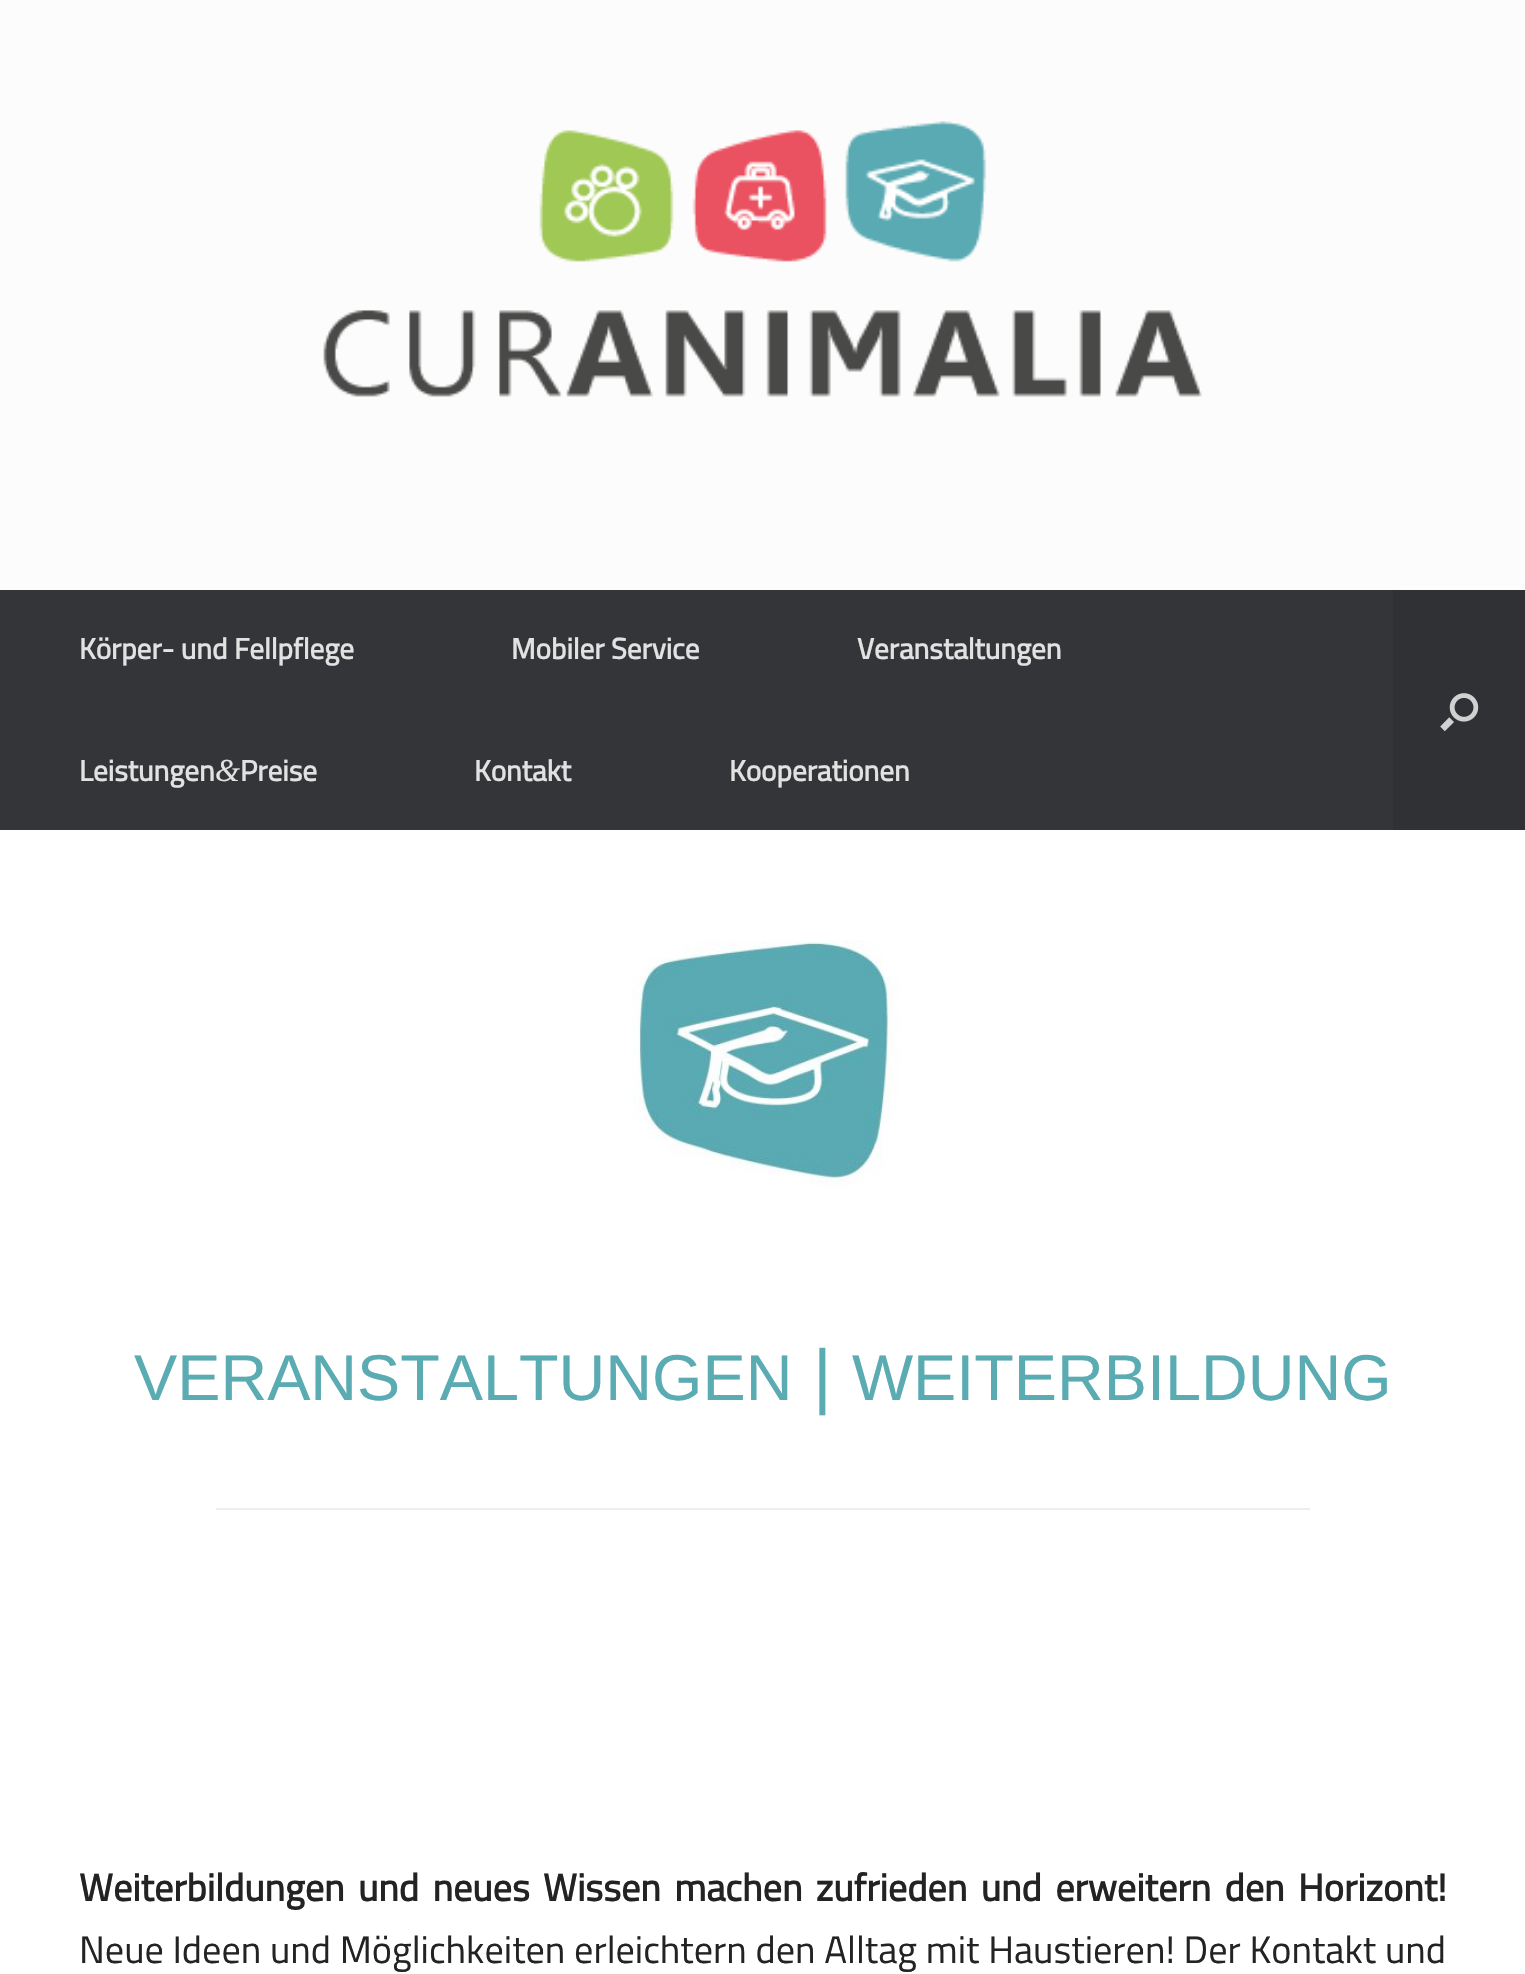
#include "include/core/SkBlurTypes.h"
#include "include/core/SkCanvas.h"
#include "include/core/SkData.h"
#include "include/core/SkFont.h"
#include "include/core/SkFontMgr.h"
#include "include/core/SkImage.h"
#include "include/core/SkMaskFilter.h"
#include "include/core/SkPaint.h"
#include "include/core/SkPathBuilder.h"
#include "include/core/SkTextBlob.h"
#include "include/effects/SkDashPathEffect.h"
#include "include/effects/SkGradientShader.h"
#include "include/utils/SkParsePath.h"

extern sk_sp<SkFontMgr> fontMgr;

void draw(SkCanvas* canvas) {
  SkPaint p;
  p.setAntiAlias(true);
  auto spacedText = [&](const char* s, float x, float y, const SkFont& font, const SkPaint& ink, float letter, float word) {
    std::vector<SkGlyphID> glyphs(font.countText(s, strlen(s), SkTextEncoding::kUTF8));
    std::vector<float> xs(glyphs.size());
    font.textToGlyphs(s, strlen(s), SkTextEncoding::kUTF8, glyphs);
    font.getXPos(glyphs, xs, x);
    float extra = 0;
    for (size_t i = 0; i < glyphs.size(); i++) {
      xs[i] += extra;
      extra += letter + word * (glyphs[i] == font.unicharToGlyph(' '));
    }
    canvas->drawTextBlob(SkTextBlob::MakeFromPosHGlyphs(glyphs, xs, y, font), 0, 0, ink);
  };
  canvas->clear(SkColorSetRGB(252, 252, 252));
  canvas->drawImageRect(SkImages::DeferredFromEncodedData(SkData::MakeFromFileName("images/1.png")), SkRect::MakeLTRB(323, 121, 1202, 397), SkSamplingOptions());
  p.setColor(SkColorSetRGB(52, 53, 56));
  canvas->drawRect(SkRect::MakeLTRB(0, 590, 1393, 830), p);
  p.setColor(SkColorSetRGB(48, 49, 52));
  canvas->drawRect(SkRect::MakeLTRB(1393, 590, 1525, 830), p);
  canvas->drawImageRect(SkImages::DeferredFromEncodedData(SkData::MakeFromFileName("images/2.png")), SkRect::MakeLTRB(1440, 693, 1479, 732), SkSamplingOptions());
  p.setColor(SK_ColorWHITE);
  canvas->drawRect(SkRect::MakeLTRB(0, 830, 1525, 1974), p);
  canvas->drawImageRect(SkImages::DeferredFromEncodedData(SkData::MakeFromFileName("images/3.png")), SkRect::MakeLTRB(631, 940, 900, 1189), SkSamplingOptions());
  p.setColor(SkColorSetRGB(238, 238, 238));
  canvas->drawRect(SkRect::MakeLTRB(216, 1508, 1310, 1510), p);
  SkFont font1(fontMgr->matchFamilyStyle("Titillium Web", SkFontStyle::Bold()), 29.25f);
  font1.setSubpixel(true);
  p.setColor(SkColorSetRGB(226, 226, 226));
  canvas->drawString("Körper- und Fellpflege", 79, 659, font1, p);
  canvas->drawString("Mobiler Service", 511, 659, font1, p);
  canvas->drawString("Veranstaltungen", 857, 659, font1, p);
  canvas->drawString("Leistungen", 79, 781, font1, p);
  SkFont font2(fontMgr->matchFamilyStyle("Liberation Serif", SkFontStyle::Italic()), 32);
  font2.setSubpixel(true);
  canvas->drawString("&", 215, 781, font2, p);
  canvas->drawString("Preise", 240, 781, font1, p);
  canvas->drawString("Kontakt", 474, 781, font1, p);
  canvas->drawString("Kooperationen", 729, 781, font1, p);
  SkFont font3(fontMgr->matchFamilyStyle("Liberation Sans", SkFontStyle::Normal()), 64.75f);
  font3.setSubpixel(true);
  p.setColor(SkColorSetRGB(91, 171, 179));
  canvas->drawString("VERANSTALTUNGEN", 134, 1400, font3, p);
  SkFont font4(fontMgr->matchFamilyStyle("Liberation Sans", SkFontStyle::Normal()), 72);
  font4.setSubpixel(true);
  canvas->drawString("|", 813, 1400, font4, p);
  canvas->drawString("WEITERBILDUNG", 852, 1400, font3, p);
  SkFont font5(fontMgr->matchFamilyStyle("Titillium Web", SkFontStyle::Bold()), 38.25f);
  font5.setSubpixel(true);
  p.setColor(SkColorSetRGB(36, 35, 35));
  spacedText("Weiterbildungen und neues Wissen machen zufrieden und erweitern den Horizont!", 79, 1901, font5, p, 0, 5);
  SkFont font6(fontMgr->matchFamilyStyle("Titillium Web", SkFontStyle::Normal()), 38.25f);
  font6.setSubpixel(true);
  spacedText("Neue Ideen und Möglichkeiten erleichtern den Alltag mit Haustieren! Der Kontakt und", 79, 1963, font6, p, 0, 0.25f);
}
